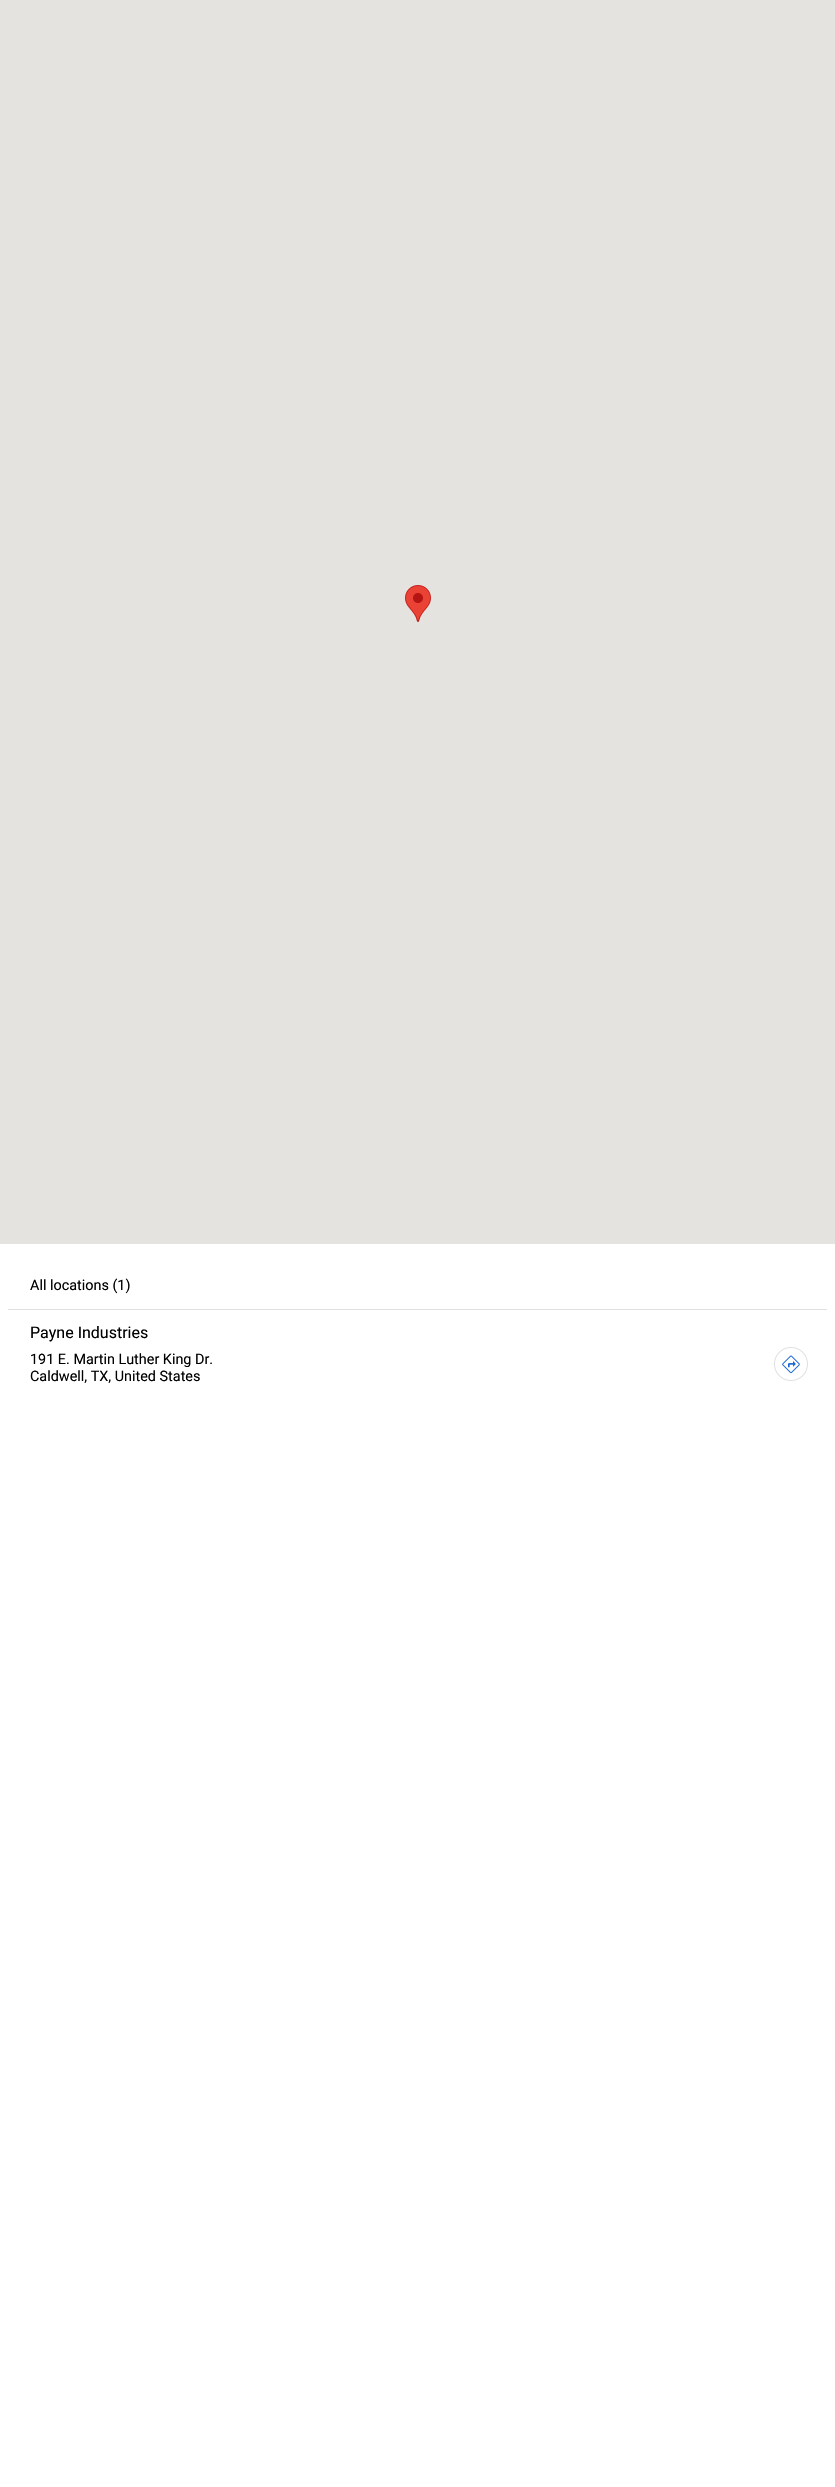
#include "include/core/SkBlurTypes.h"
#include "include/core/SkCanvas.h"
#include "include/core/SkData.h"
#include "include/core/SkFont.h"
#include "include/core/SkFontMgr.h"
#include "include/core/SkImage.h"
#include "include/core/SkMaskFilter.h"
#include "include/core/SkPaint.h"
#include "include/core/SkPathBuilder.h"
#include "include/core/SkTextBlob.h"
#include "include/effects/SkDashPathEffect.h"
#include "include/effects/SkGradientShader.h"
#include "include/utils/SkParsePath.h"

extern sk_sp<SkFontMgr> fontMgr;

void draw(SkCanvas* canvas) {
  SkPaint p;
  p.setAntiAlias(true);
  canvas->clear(SK_ColorWHITE);
  p.setColor(SkColorSetRGB(229, 227, 223));
  canvas->drawRect(SkRect::MakeLTRB(0, 0, 835, 1244), p);
  canvas->drawImageRect(SkImages::DeferredFromEncodedData(SkData::MakeFromFileName("images/1.png")), SkRect::MakeLTRB(405, 585, 431, 622), SkSamplingOptions());
  p.setColor(SkColorSetRGB(224, 224, 224));
  canvas->drawRect(SkRect::MakeLTRB(8, 1309, 827, 1310), p);
  canvas->drawImageRect(SkImages::DeferredFromEncodedData(SkData::MakeFromFileName("images/2.png")), SkRect::MakeLTRB(774, 1347, 808, 1381), SkSamplingOptions());
  SkFont font1(fontMgr->matchFamilyStyle("Roboto", SkFontStyle::Normal()), 14.4f);
  font1.setSubpixel(true);
  p.setColor(SK_ColorBLACK);
  canvas->drawString("All locations (1)", 30, 1290, font1, p);
  SkFont font2(fontMgr->matchFamilyStyle("Roboto", SkFontStyle::Normal()), 16);
  font2.setSubpixel(true);
  canvas->drawString("Payne Industries", 30, 1338, font2, p);
  canvas->drawString("191 E. Martin Luther King Dr.", 30, 1364, font1, p);
  canvas->drawString("Caldwell, TX, United States", 30, 1381, font1, p);
}
